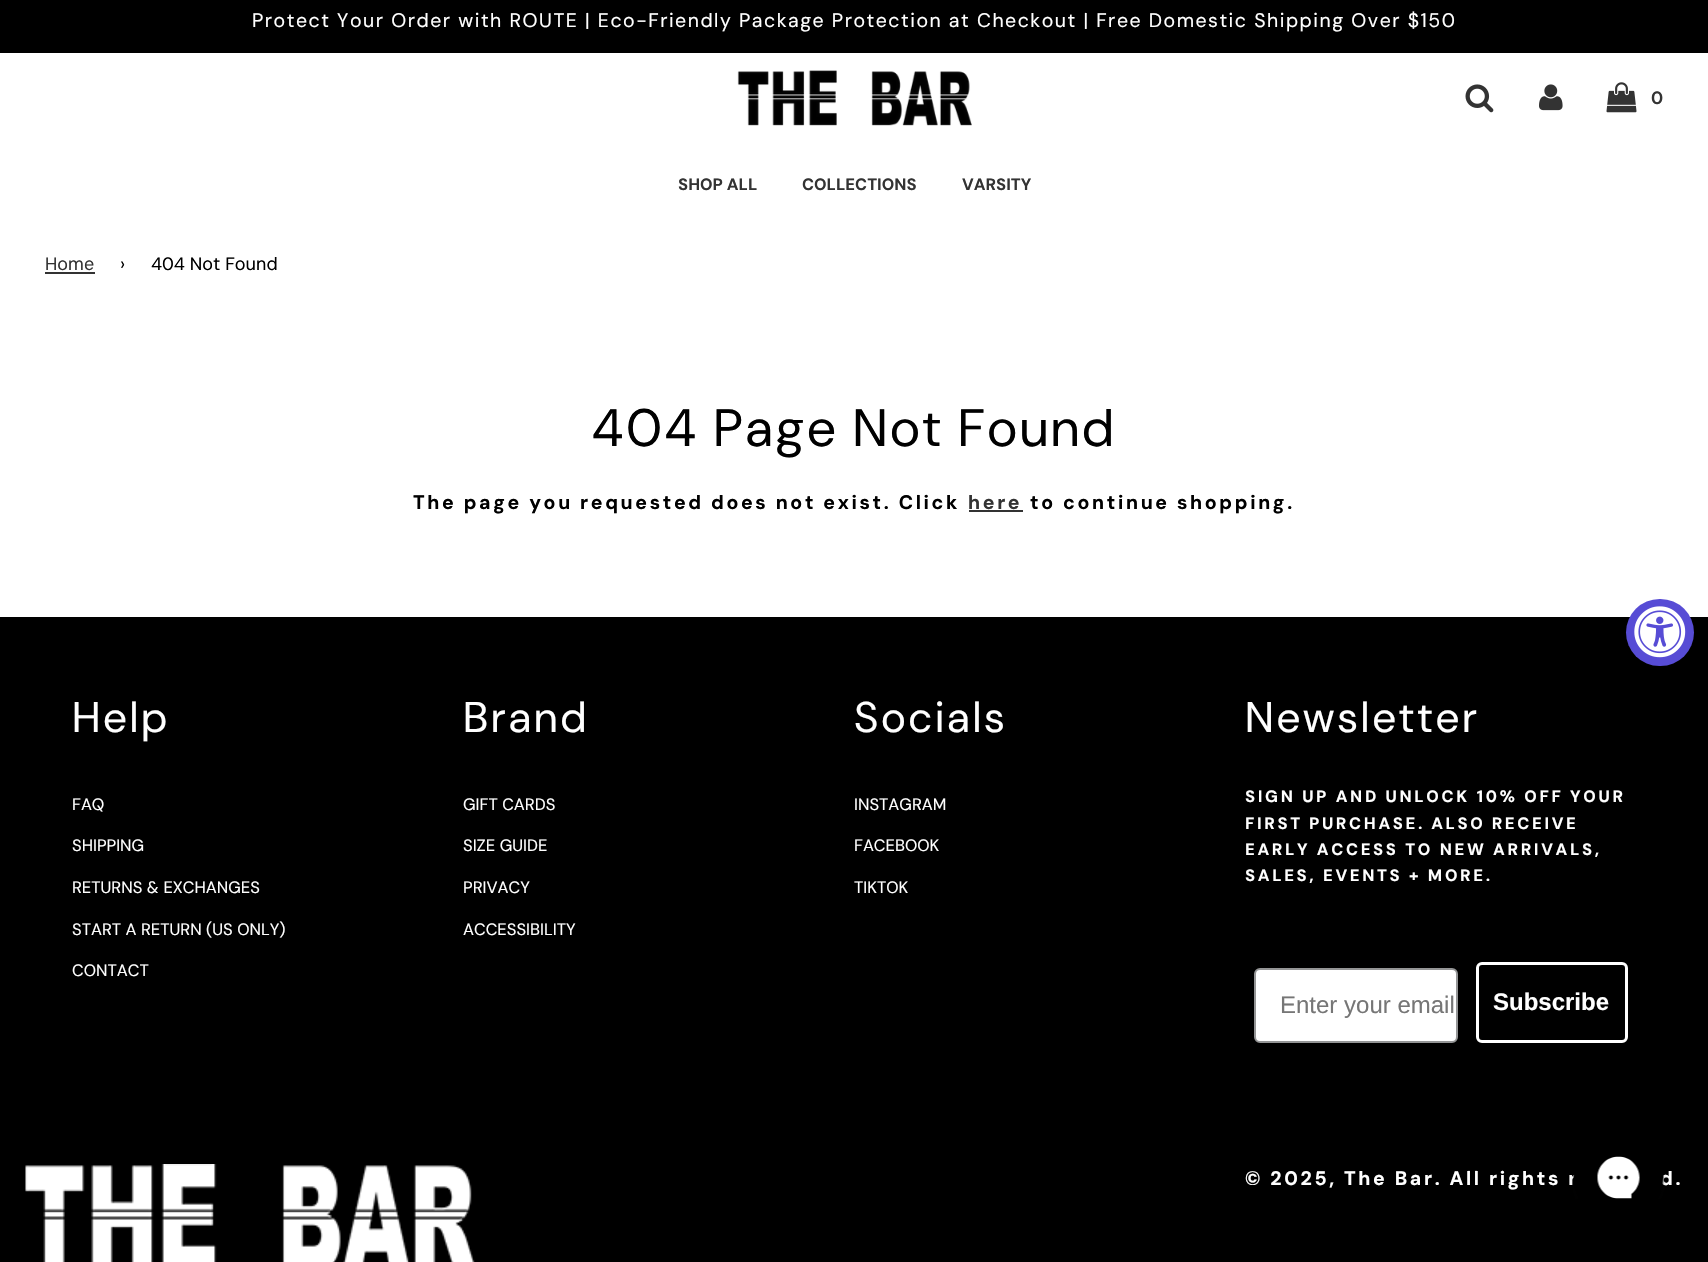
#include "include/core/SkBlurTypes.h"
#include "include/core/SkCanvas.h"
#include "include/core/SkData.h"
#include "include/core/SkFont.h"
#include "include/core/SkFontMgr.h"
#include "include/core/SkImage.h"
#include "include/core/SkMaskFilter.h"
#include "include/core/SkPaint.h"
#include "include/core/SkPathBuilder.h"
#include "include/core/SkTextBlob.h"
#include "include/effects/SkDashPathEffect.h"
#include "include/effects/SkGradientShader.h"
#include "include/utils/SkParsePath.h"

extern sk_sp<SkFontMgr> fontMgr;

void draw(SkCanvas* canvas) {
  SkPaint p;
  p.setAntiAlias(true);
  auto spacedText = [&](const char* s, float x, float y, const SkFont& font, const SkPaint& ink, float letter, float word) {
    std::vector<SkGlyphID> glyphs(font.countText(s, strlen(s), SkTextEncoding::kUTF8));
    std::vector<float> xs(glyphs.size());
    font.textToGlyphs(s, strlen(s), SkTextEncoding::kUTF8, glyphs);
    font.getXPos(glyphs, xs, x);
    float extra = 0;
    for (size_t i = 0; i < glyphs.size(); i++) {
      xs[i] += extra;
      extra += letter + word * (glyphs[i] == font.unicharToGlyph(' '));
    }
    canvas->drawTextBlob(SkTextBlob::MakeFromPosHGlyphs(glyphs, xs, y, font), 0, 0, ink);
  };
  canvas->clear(SK_ColorWHITE);
  p.setColor(SK_ColorBLACK);
  canvas->drawRect(SkRect::MakeLTRB(0, 0, 1708, 53), p);
  canvas->drawImageRect(SkImages::DeferredFromEncodedData(SkData::MakeFromFileName("images/1.png")), SkRect::MakeLTRB(737, 70, 972, 126), SkSamplingOptions());
  canvas->drawImageRect(SkImages::DeferredFromEncodedData(SkData::MakeFromFileName("images/2.png")), SkRect::MakeLTRB(1465, 84, 1494, 113), SkSamplingOptions());
  canvas->drawImageRect(SkImages::DeferredFromEncodedData(SkData::MakeFromFileName("images/3.png")), SkRect::MakeLTRB(1539, 84, 1563, 111), SkSamplingOptions());
  canvas->drawImageRect(SkImages::DeferredFromEncodedData(SkData::MakeFromFileName("images/4.png")), SkRect::MakeLTRB(1606, 82, 1637, 113), SkSamplingOptions());
  p.setColor(SkColorSetRGB(51, 51, 51));
  canvas->drawRect(SkRect::MakeLTRB(45, 272, 95, 274), p);
  canvas->drawRect(SkRect::MakeLTRB(969, 510, 1023, 512), p);
  p.setColor(SK_ColorBLACK);
  canvas->drawRect(SkRect::MakeLTRB(0, 617, 1708, 1262), p);
  p.setColor(SK_ColorWHITE);
  canvas->drawRoundRect(SkRect::MakeLTRB(1255, 969, 1457, 1042), 5, 5, p);
  p.setStyle(SkPaint::kStroke_Style);
  p.setStrokeWidth(2);
  p.setColor(SkColorSetRGB(148, 149, 150));
  canvas->drawRoundRect(SkRect::MakeLTRB(1255, 969, 1457, 1042), 5, 5, p);
  p.setStrokeWidth(3);
  p.setColor(SK_ColorWHITE);
  canvas->drawRoundRect(SkRect::MakeLTRB(1477.5f, 963.5f, 1626.5f, 1041.5f), 4.5f, 4.5f, p);
  canvas->drawImageRect(SkImages::DeferredFromEncodedData(SkData::MakeFromFileName("images/5.png")), SkRect::MakeLTRB(25, 1164, 475, 1262), SkSamplingOptions());
  p.setStyle(SkPaint::kFill_Style);
  p.setColor(SkColorSetRGB(87, 76, 213));
  canvas->drawRoundRect(SkRect::MakeLTRB(1626, 599, 1694, 666), 33.5f, 33.5f, p);
  canvas->drawImageRect(SkImages::DeferredFromEncodedData(SkData::MakeFromFileName("images/6.png")), SkRect::MakeLTRB(1634, 606, 1686, 658), SkSamplingOptions());
  SkFont font1(fontMgr->matchFamilyStyle("DM Sans", SkFontStyle::Normal()), 19.5f);
  font1.setSubpixel(true);
  p.setColor(SK_ColorWHITE);
  spacedText("Protect Your Order with ROUTE | Eco-Friendly Package Protection at Checkout | Free Domestic Shipping Over $150", 252, 27, font1, p, 1.5f, 0);
  SkFont font2(fontMgr->matchFamilyStyle("Montserrat", SkFontStyle(600, SkFontStyle::kNormal_Width, SkFontStyle::kUpright_Slant)), 18);
  font2.setSubpixel(true);
  p.setColor(SkColorSetRGB(51, 51, 51));
  spacedText("0", 1651, 104, font2, p, 1, 0);
  SkFont font3(fontMgr->matchFamilyStyle("DM Sans", SkFontStyle::Bold()), 16.5f);
  font3.setSubpixel(true);
  canvas->drawString("SHOP ALL", 678, 190, font3, p);
  canvas->drawString("COLLECTIONS", 802, 190, font3, p);
  canvas->drawString("VARSITY", 962, 190, font3, p);
  SkFont font4(fontMgr->matchFamilyStyle("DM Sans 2", SkFontStyle::Normal()), 18);
  font4.setSubpixel(true);
  canvas->drawString("Home", 45, 270, font4, p);
  p.setColor(SK_ColorBLACK);
  canvas->drawString("›", 120, 270, font4, p);
  canvas->drawString("404 Not Found", 151, 270, font4, p);
  SkFont font5(fontMgr->matchFamilyStyle("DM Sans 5", SkFontStyle::Normal()), 52.5f);
  font5.setSubpixel(true);
  spacedText("404 Page Not Found", 592, 446, font5, p, 3, 0);
  SkFont font6(fontMgr->matchFamilyStyle("DM Sans 2", SkFontStyle::Bold()), 19.5f);
  font6.setSubpixel(true);
  spacedText("The page you requested does not exist. Click", 413, 509, font6, p, 2.65f, 0);
  p.setColor(SkColorSetRGB(51, 51, 51));
  spacedText("here", 968, 509, font6, p, 2.65f, 0);
  p.setColor(SK_ColorBLACK);
  spacedText("to continue shopping.", 1030, 509, font6, p, 2.65f, 0);
  SkFont font7(fontMgr->matchFamilyStyle("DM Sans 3", SkFontStyle::Normal()), 42.75f);
  font7.setSubpixel(true);
  p.setColor(SK_ColorWHITE);
  spacedText("Help", 72, 732, font7, p, 2.65f, 0);
  SkFont font8(fontMgr->matchFamilyStyle("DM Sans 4", SkFontStyle::Normal()), 16.5f);
  font8.setSubpixel(true);
  canvas->drawString("FAQ", 72, 810, font8, p);
  SkFont font9(fontMgr->matchFamilyStyle("DM Sans 2", SkFontStyle::Normal()), 16.5f);
  font9.setSubpixel(true);
  canvas->drawString("SHIPPING", 72, 851, font9, p);
  canvas->drawString("RETURNS & EXCHANGES", 72, 893, font9, p);
  canvas->drawString("START A RETURN (US ONLY)", 72, 935, font9, p);
  canvas->drawString("CONTACT", 72, 976, font9, p);
  spacedText("Brand", 463, 732, font7, p, 2.65f, 0);
  canvas->drawString("GIFT CARDS", 463, 810, font9, p);
  canvas->drawString("SIZE GUIDE", 463, 851, font9, p);
  canvas->drawString("PRIVACY", 463, 893, font9, p);
  canvas->drawString("ACCESSIBILITY", 463, 935, font9, p);
  spacedText("Socials", 854, 732, font7, p, 2.65f, 0);
  canvas->drawString("INSTAGRAM", 854, 810, font9, p);
  canvas->drawString("FACEBOOK", 854, 851, font9, p);
  canvas->drawString("TIKTOK", 854, 893, font9, p);
  spacedText("Newsletter", 1245, 732, font7, p, 2.65f, 0);
  spacedText("SIGN UP AND UNLOCK 10% OFF YOUR", 1245, 802, font3, p, 2.65f, 0);
  spacedText("FIRST PURCHASE. ALSO RECEIVE", 1245, 829, font3, p, 2.65f, -0.5f);
  spacedText("EARLY ACCESS TO NEW ARRIVALS,", 1245, 855, font3, p, 2.65f, 0);
  spacedText("SALES, EVENTS + MORE.", 1245, 881, font3, p, 2.65f, 0);
  SkFont font10(fontMgr->matchFamilyStyle("Liberation Sans", SkFontStyle::Normal()), 24);
  font10.setSubpixel(true);
  p.setColor(SkColorSetRGB(118, 118, 118));
  canvas->drawString("Enter your email", 1280, 1013, font10, p);
  SkFont font11(fontMgr->matchFamilyStyle("Liberation Sans", SkFontStyle::Bold()), 24);
  font11.setSubpixel(true);
  p.setColor(SK_ColorWHITE);
  canvas->drawString("Subscribe", 1493, 1010, font11, p);
  spacedText("© 2025, The Bar. All rights r", 1245, 1185, font6, p, 2.65f, 0);
  spacedText("d.", 1660, 1185, font6, p, 2.65f, 0);
  canvas->drawImageRect(SkImages::DeferredFromEncodedData(SkData::MakeFromFileName("images/7.png")), SkRect::MakeLTRB(1570, 1156, 1667, 1199), SkSamplingOptions());
}
